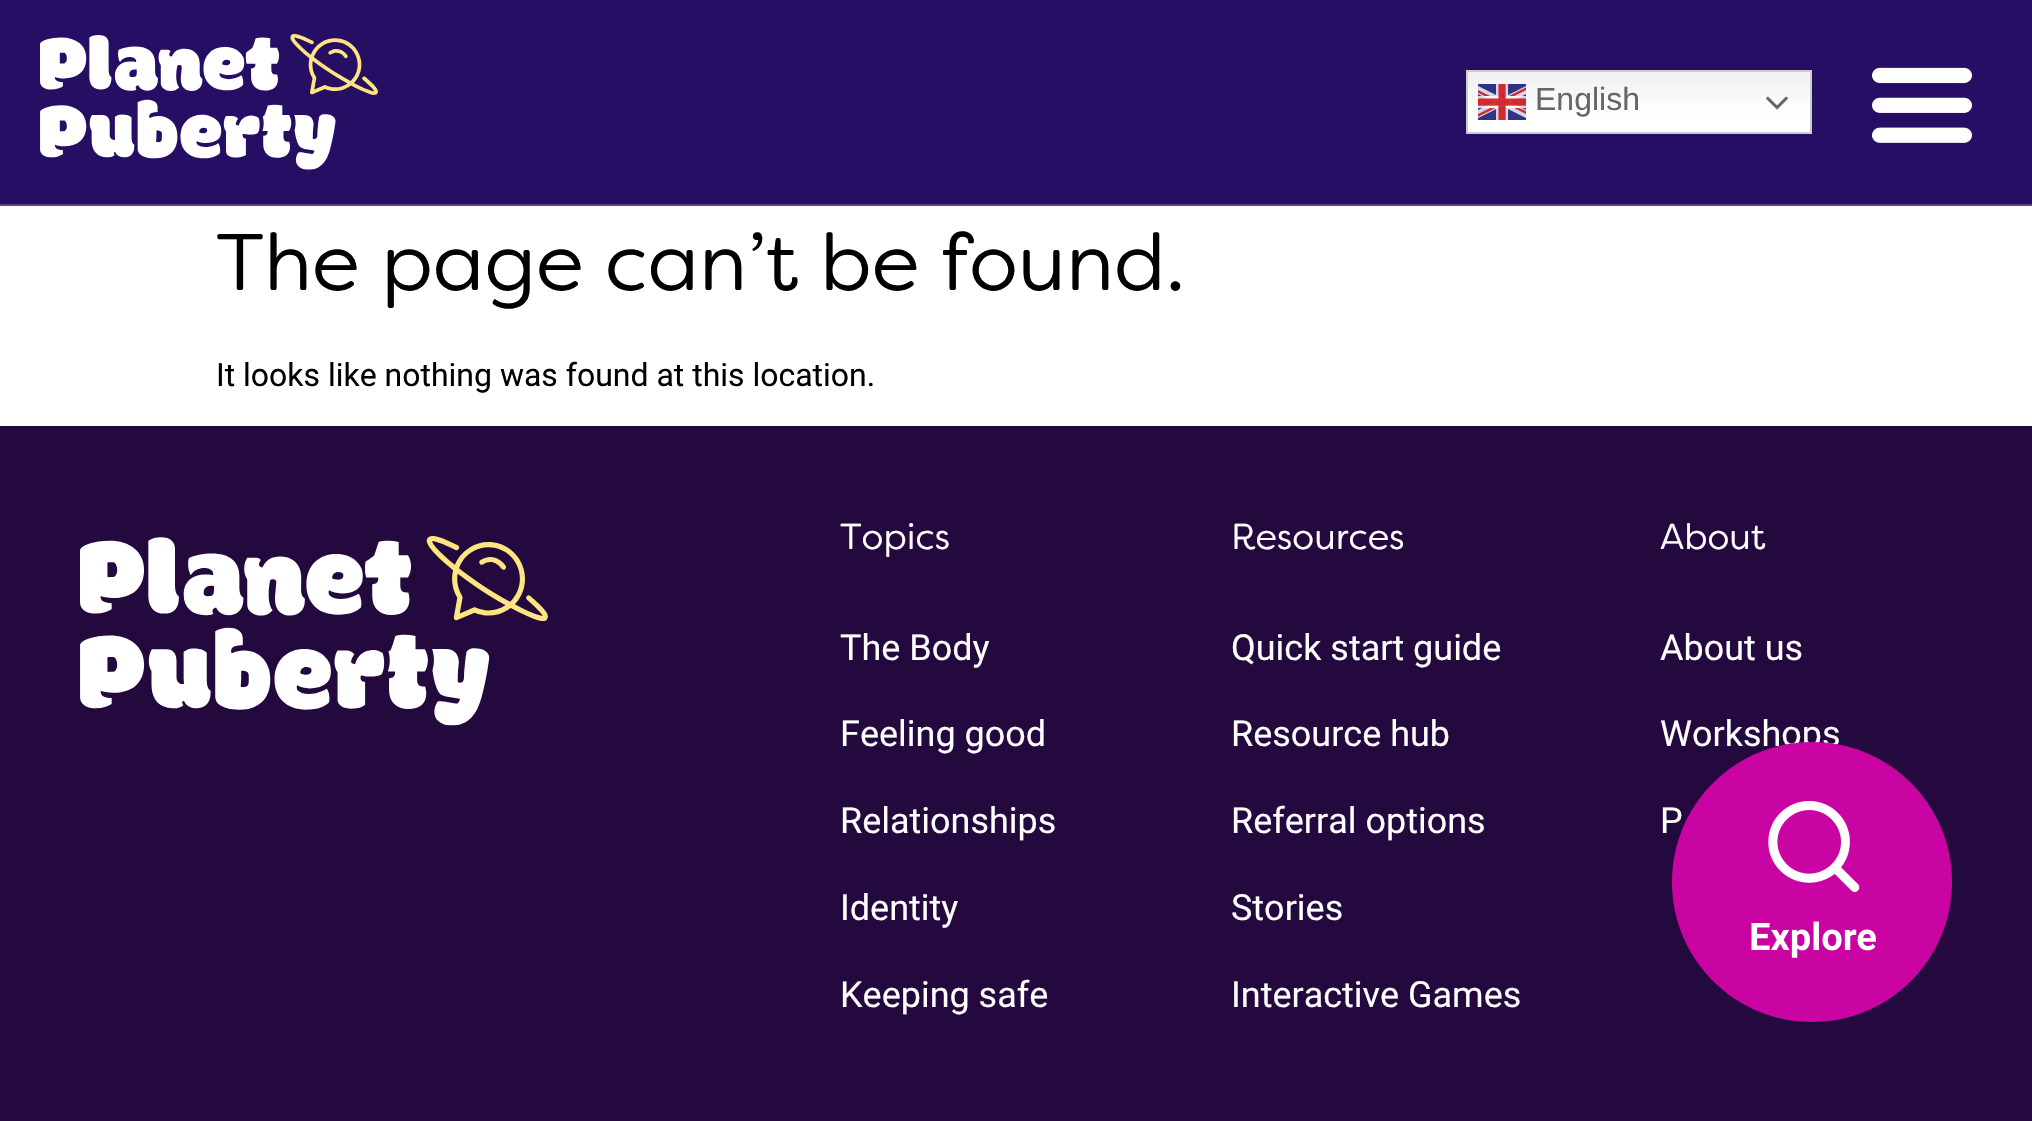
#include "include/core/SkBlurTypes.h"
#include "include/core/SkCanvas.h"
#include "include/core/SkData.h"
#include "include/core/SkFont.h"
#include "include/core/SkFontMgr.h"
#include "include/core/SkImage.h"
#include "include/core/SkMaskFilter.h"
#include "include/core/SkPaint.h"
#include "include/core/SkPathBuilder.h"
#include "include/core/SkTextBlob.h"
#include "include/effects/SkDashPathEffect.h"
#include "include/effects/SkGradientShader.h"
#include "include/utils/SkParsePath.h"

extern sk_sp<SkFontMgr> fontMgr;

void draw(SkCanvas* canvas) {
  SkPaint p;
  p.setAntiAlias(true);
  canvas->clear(SK_ColorWHITE);
  p.setColor(SkColorSetRGB(39, 14, 101));
  canvas->drawRect(SkRect::MakeLTRB(0, 0, 2032, 204), p);
  p.setColor(SkColorSetRGB(89, 69, 136));
  canvas->drawRect(SkRect::MakeLTRB(0, 204, 2032, 206), p);
  canvas->drawImageRect(SkImages::DeferredFromEncodedData(SkData::MakeFromFileName("images/1.png")), SkRect::MakeLTRB(40, 34, 378, 170), SkSamplingOptions());
  {
    const SkColor colors[] = {SkColorSetRGB(239, 239, 239), SK_ColorWHITE};
    const float stops[] = {0, 0.7f};
    const SkPoint ends[] = {{1639, 70}, {1639, 134}};
    p.setShader(SkGradientShader::MakeLinear(ends, colors, stops, 2, SkTileMode::kClamp));
    p.setAlpha(255);
  }
  canvas->drawRect(SkRect::MakeLTRB(1468, 72, 1810, 132), p);
  p.setStyle(SkPaint::kStroke_Style);
  p.setStrokeWidth(2);
  p.setShader(nullptr);
  p.setColor(SkColorSetRGB(204, 204, 204));
  canvas->drawRect(SkRect::MakeLTRB(1467, 71, 1811, 133), p);
  canvas->drawImageRect(SkImages::DeferredFromEncodedData(SkData::MakeFromFileName("images/2.png")), SkRect::MakeLTRB(1478, 84, 1526, 120), SkSamplingOptions());
  canvas->drawImageRect(SkImages::DeferredFromEncodedData(SkData::MakeFromFileName("images/3.png")), SkRect::MakeLTRB(1766, 96, 1788, 110), SkSamplingOptions());
  canvas->drawImageRect(SkImages::DeferredFromEncodedData(SkData::MakeFromFileName("images/5.png")), SkRect::MakeLTRB(1872, 67, 1972, 143), SkSamplingOptions());
  p.setStyle(SkPaint::kFill_Style);
  p.setColor(SkColorSetRGB(36, 9, 63));
  canvas->drawRect(SkRect::MakeLTRB(0, 426, 2032, 1121), p);
  canvas->drawImageRect(SkImages::DeferredFromEncodedData(SkData::MakeFromFileName("images/6.png")), SkRect::MakeLTRB(80, 536, 548, 726), SkSamplingOptions());
  SkFont font1(fontMgr->matchFamilyStyle("Liberation Sans", SkFontStyle::Normal()), 32);
  font1.setSubpixel(true);
  p.setColor(SkColorSetRGB(102, 102, 102));
  canvas->drawString("English", 1535, 110, font1, p);
  SkFont font2(fontMgr->matchFamilyStyle("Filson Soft", SkFontStyle::Normal()), 80);
  font2.setSubpixel(true);
  p.setColor(SkColorSetRGB(3, 0, 0));
  canvas->drawString("The page can’t be found.", 216, 290, font2, p);
  SkFont font3(fontMgr->matchFamilyStyle("Roboto", SkFontStyle::Normal()), 32);
  font3.setSubpixel(true);
  canvas->drawString("It looks like nothing was found at this location.", 216, 386, font3, p);
  SkFont font4(fontMgr->matchFamilyStyle("Filson Soft", SkFontStyle::Normal()), 36);
  font4.setSubpixel(true);
  p.setColor(SK_ColorWHITE);
  canvas->drawString("Topics", 840, 549, font4, p);
  SkFont font5(fontMgr->matchFamilyStyle("Roboto", SkFontStyle::Normal()), 36);
  font5.setSubpixel(true);
  canvas->drawString("The Body", 840, 660, font5, p);
  canvas->drawString("Feeling good", 840, 746, font5, p);
  canvas->drawString("Relationships", 840, 833, font5, p);
  canvas->drawString("Identity", 840, 920, font5, p);
  canvas->drawString("Keeping safe", 840, 1007, font5, p);
  canvas->drawString("Resources", 1231, 549, font4, p);
  canvas->drawString("Quick start guide", 1231, 660, font5, p);
  canvas->drawString("Resource hub", 1231, 746, font5, p);
  canvas->drawString("Referral options", 1231, 833, font5, p);
  canvas->drawString("Stories", 1231, 920, font5, p);
  canvas->drawString("Interactive Games", 1231, 1007, font5, p);
  canvas->drawString("About", 1660, 549, font4, p);
  canvas->drawString("About us", 1660, 660, font5, p);
  canvas->drawString("Workshops", 1660, 746, font5, p);
  canvas->drawString("P", 1660, 833, font5, p);
  canvas->drawImageRect(SkImages::DeferredFromEncodedData(SkData::MakeFromFileName("images/4.png")), SkRect::MakeLTRB(1672, 742, 1952, 1022), SkSamplingOptions());
}
